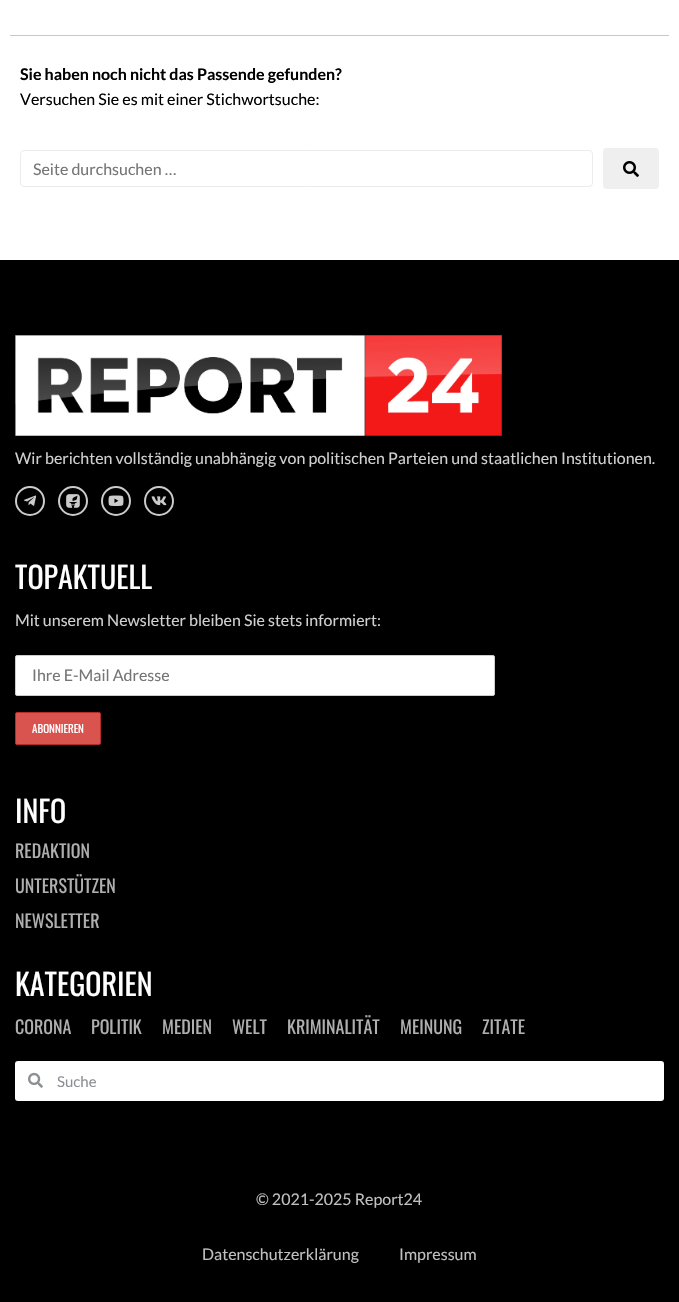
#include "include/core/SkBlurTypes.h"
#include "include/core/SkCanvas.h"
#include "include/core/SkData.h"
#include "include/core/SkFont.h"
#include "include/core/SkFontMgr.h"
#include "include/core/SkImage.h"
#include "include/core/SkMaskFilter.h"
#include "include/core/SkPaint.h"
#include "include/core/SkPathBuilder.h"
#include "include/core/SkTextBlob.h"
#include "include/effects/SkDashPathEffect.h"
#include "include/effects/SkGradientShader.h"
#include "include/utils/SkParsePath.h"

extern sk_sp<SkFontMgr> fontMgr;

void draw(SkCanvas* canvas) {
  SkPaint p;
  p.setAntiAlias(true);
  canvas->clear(SK_ColorWHITE);
  p.setColor(SkColorSetRGB(200, 200, 200));
  canvas->drawRect(SkRect::MakeLTRB(10, 35, 669, 36), p);
  p.setStyle(SkPaint::kStroke_Style);
  p.setStrokeWidth(1);
  p.setColor(SkColorSetRGB(235, 236, 237));
  canvas->drawRoundRect(SkRect::MakeLTRB(20.5f, 150.5f, 592.5f, 186.5f), 3.5f, 3.5f, p);
  p.setStyle(SkPaint::kFill_Style);
  p.setColor(SkColorSetRGB(239, 239, 239));
  canvas->drawRoundRect(SkRect::MakeLTRB(603, 148, 659, 189), 4, 4, p);
  canvas->drawImageRect(SkImages::DeferredFromEncodedData(SkData::MakeFromFileName("images/1.png")), SkRect::MakeLTRB(623, 161, 639, 177), SkSamplingOptions());
  p.setColor(SK_ColorBLACK);
  canvas->drawRect(SkRect::MakeLTRB(0, 260, 679, 1302), p);
  canvas->drawImageRect(SkImages::DeferredFromEncodedData(SkData::MakeFromFileName("images/2.png")), SkRect::MakeLTRB(15, 335, 502, 436), SkSamplingOptions());
  p.setStyle(SkPaint::kStroke_Style);
  p.setStrokeWidth(2);
  p.setColor(SkColorSetRGB(203, 203, 203));
  canvas->drawCircle(30, 501, 14, p);
  canvas->drawImageRect(SkImages::DeferredFromEncodedData(SkData::MakeFromFileName("images/3.png")), SkRect::MakeLTRB(23, 495, 37, 506), SkSamplingOptions());
  canvas->drawCircle(73, 501, 14, p);
  canvas->drawImageRect(SkImages::DeferredFromEncodedData(SkData::MakeFromFileName("images/4.png")), SkRect::MakeLTRB(66, 494, 80, 508), SkSamplingOptions());
  canvas->drawCircle(116, 501, 14, p);
  canvas->drawImageRect(SkImages::DeferredFromEncodedData(SkData::MakeFromFileName("images/5.png")), SkRect::MakeLTRB(108, 495, 124, 506), SkSamplingOptions());
  canvas->drawCircle(159, 501, 14, p);
  canvas->drawImageRect(SkImages::DeferredFromEncodedData(SkData::MakeFromFileName("images/6.png")), SkRect::MakeLTRB(151, 496, 167, 506), SkSamplingOptions());
  p.setStyle(SkPaint::kFill_Style);
  p.setColor(SK_ColorWHITE);
  canvas->drawRoundRect(SkRect::MakeLTRB(15.5f, 655.5f, 494.5f, 695.5f), 1.5f, 1.5f, p);
  p.setStyle(SkPaint::kStroke_Style);
  p.setStrokeWidth(1);
  p.setColor(SkColorSetRGB(204, 204, 204));
  canvas->drawRoundRect(SkRect::MakeLTRB(15.5f, 655.5f, 494.5f, 695.5f), 1.5f, 1.5f, p);
  p.setStyle(SkPaint::kFill_Style);
  p.setColor(SkColorSetRGB(217, 83, 79));
  canvas->drawRoundRect(SkRect::MakeLTRB(15.5f, 712.5f, 100.5f, 744.5f), 1.5f, 1.5f, p);
  p.setStyle(SkPaint::kStroke_Style);
  p.setColor(SkColorSetRGB(181, 43, 39));
  canvas->drawRoundRect(SkRect::MakeLTRB(15.5f, 712.5f, 100.5f, 744.5f), 1.5f, 1.5f, p);
  p.setStyle(SkPaint::kFill_Style);
  p.setColor(SK_ColorWHITE);
  canvas->drawRoundRect(SkRect::MakeLTRB(15, 1061, 664, 1101), 3, 3, p);
  canvas->drawImageRect(SkImages::DeferredFromEncodedData(SkData::MakeFromFileName("images/7.png")), SkRect::MakeLTRB(28, 1072, 43, 1088), SkSamplingOptions());
  SkFont font1(fontMgr->matchFamilyStyle("Lato", SkFontStyle::Bold()), 16);
  font1.setSubpixel(true);
  p.setColor(SK_ColorBLACK);
  canvas->drawString("Sie haben noch nicht das Passende gefunden?", 20, 80, font1, p);
  SkFont font2(fontMgr->matchFamilyStyle("Lato", SkFontStyle::Normal()), 16);
  font2.setSubpixel(true);
  canvas->drawString("Versuchen Sie es mit einer Stichwortsuche:", 20, 105, font2, p);
  p.setColor(SkColorSetRGB(117, 117, 117));
  canvas->drawString("Seite durchsuchen …", 33, 175, font2, p);
  p.setColor(SkColorSetRGB(208, 208, 208));
  canvas->drawString("Wir berichten vollständig unabhängig von politischen Parteien und staatlichen Institutionen.", 15, 464, font2, p);
  SkFont font3(fontMgr->matchFamilyStyle("Oswald", SkFontStyle::Normal()), 30);
  font3.setSubpixel(true);
  p.setColor(SK_ColorWHITE);
  canvas->drawString("TOPAKTUELL", 15, 589, font3, p);
  p.setColor(SkColorSetRGB(208, 208, 208));
  canvas->drawString("Mit unserem Newsletter bleiben Sie stets informiert:", 15, 626, font2, p);
  p.setColor(SkColorSetRGB(117, 117, 117));
  canvas->drawString("Ihre E-Mail Adresse", 32, 681, font2, p);
  SkFont font4(fontMgr->matchFamilyStyle("Oswald", SkFontStyle::Normal()), 11);
  font4.setSubpixel(true);
  p.setColor(SK_ColorWHITE);
  canvas->drawString("ABONNIEREN", 32, 733, font4, p);
  canvas->drawString("INFO", 15, 823, font3, p);
  SkFont font5(fontMgr->matchFamilyStyle("Oswald", SkFontStyle::Normal()), 18);
  font5.setSubpixel(true);
  p.setColor(SkColorSetRGB(175, 175, 175));
  canvas->drawString("REDAKTION", 15, 858, font5, p);
  canvas->drawString("UNTERSTÜTZEN", 15, 893, font5, p);
  canvas->drawString("NEWSLETTER", 15, 928, font5, p);
  p.setColor(SK_ColorWHITE);
  canvas->drawString("KATEGORIEN", 15, 996, font3, p);
  p.setColor(SkColorSetRGB(175, 175, 175));
  canvas->drawString("CORONA", 15, 1034, font5, p);
  canvas->drawString("POLITIK", 91, 1034, font5, p);
  canvas->drawString("MEDIEN", 162, 1034, font5, p);
  canvas->drawString("WELT", 232, 1034, font5, p);
  canvas->drawString("KRIMINALITÄT", 287, 1034, font5, p);
  canvas->drawString("MEINUNG", 400, 1034, font5, p);
  canvas->drawString("ZITATE", 482, 1034, font5, p);
  SkFont font6(fontMgr->matchFamilyStyle("Lato", SkFontStyle::Normal()), 15);
  font6.setSubpixel(true);
  p.setColor(SkColorSetRGB(140, 143, 147));
  canvas->drawString("Suche", 57, 1087, font6, p);
  p.setColor(SkColorSetRGB(192, 192, 192));
  canvas->drawString("© 2021-2025 Report24", 256, 1205, font2, p);
  canvas->drawString("Datenschutzerklärung", 202, 1260, font2, p);
  canvas->drawString("Impressum", 399, 1260, font2, p);
}
